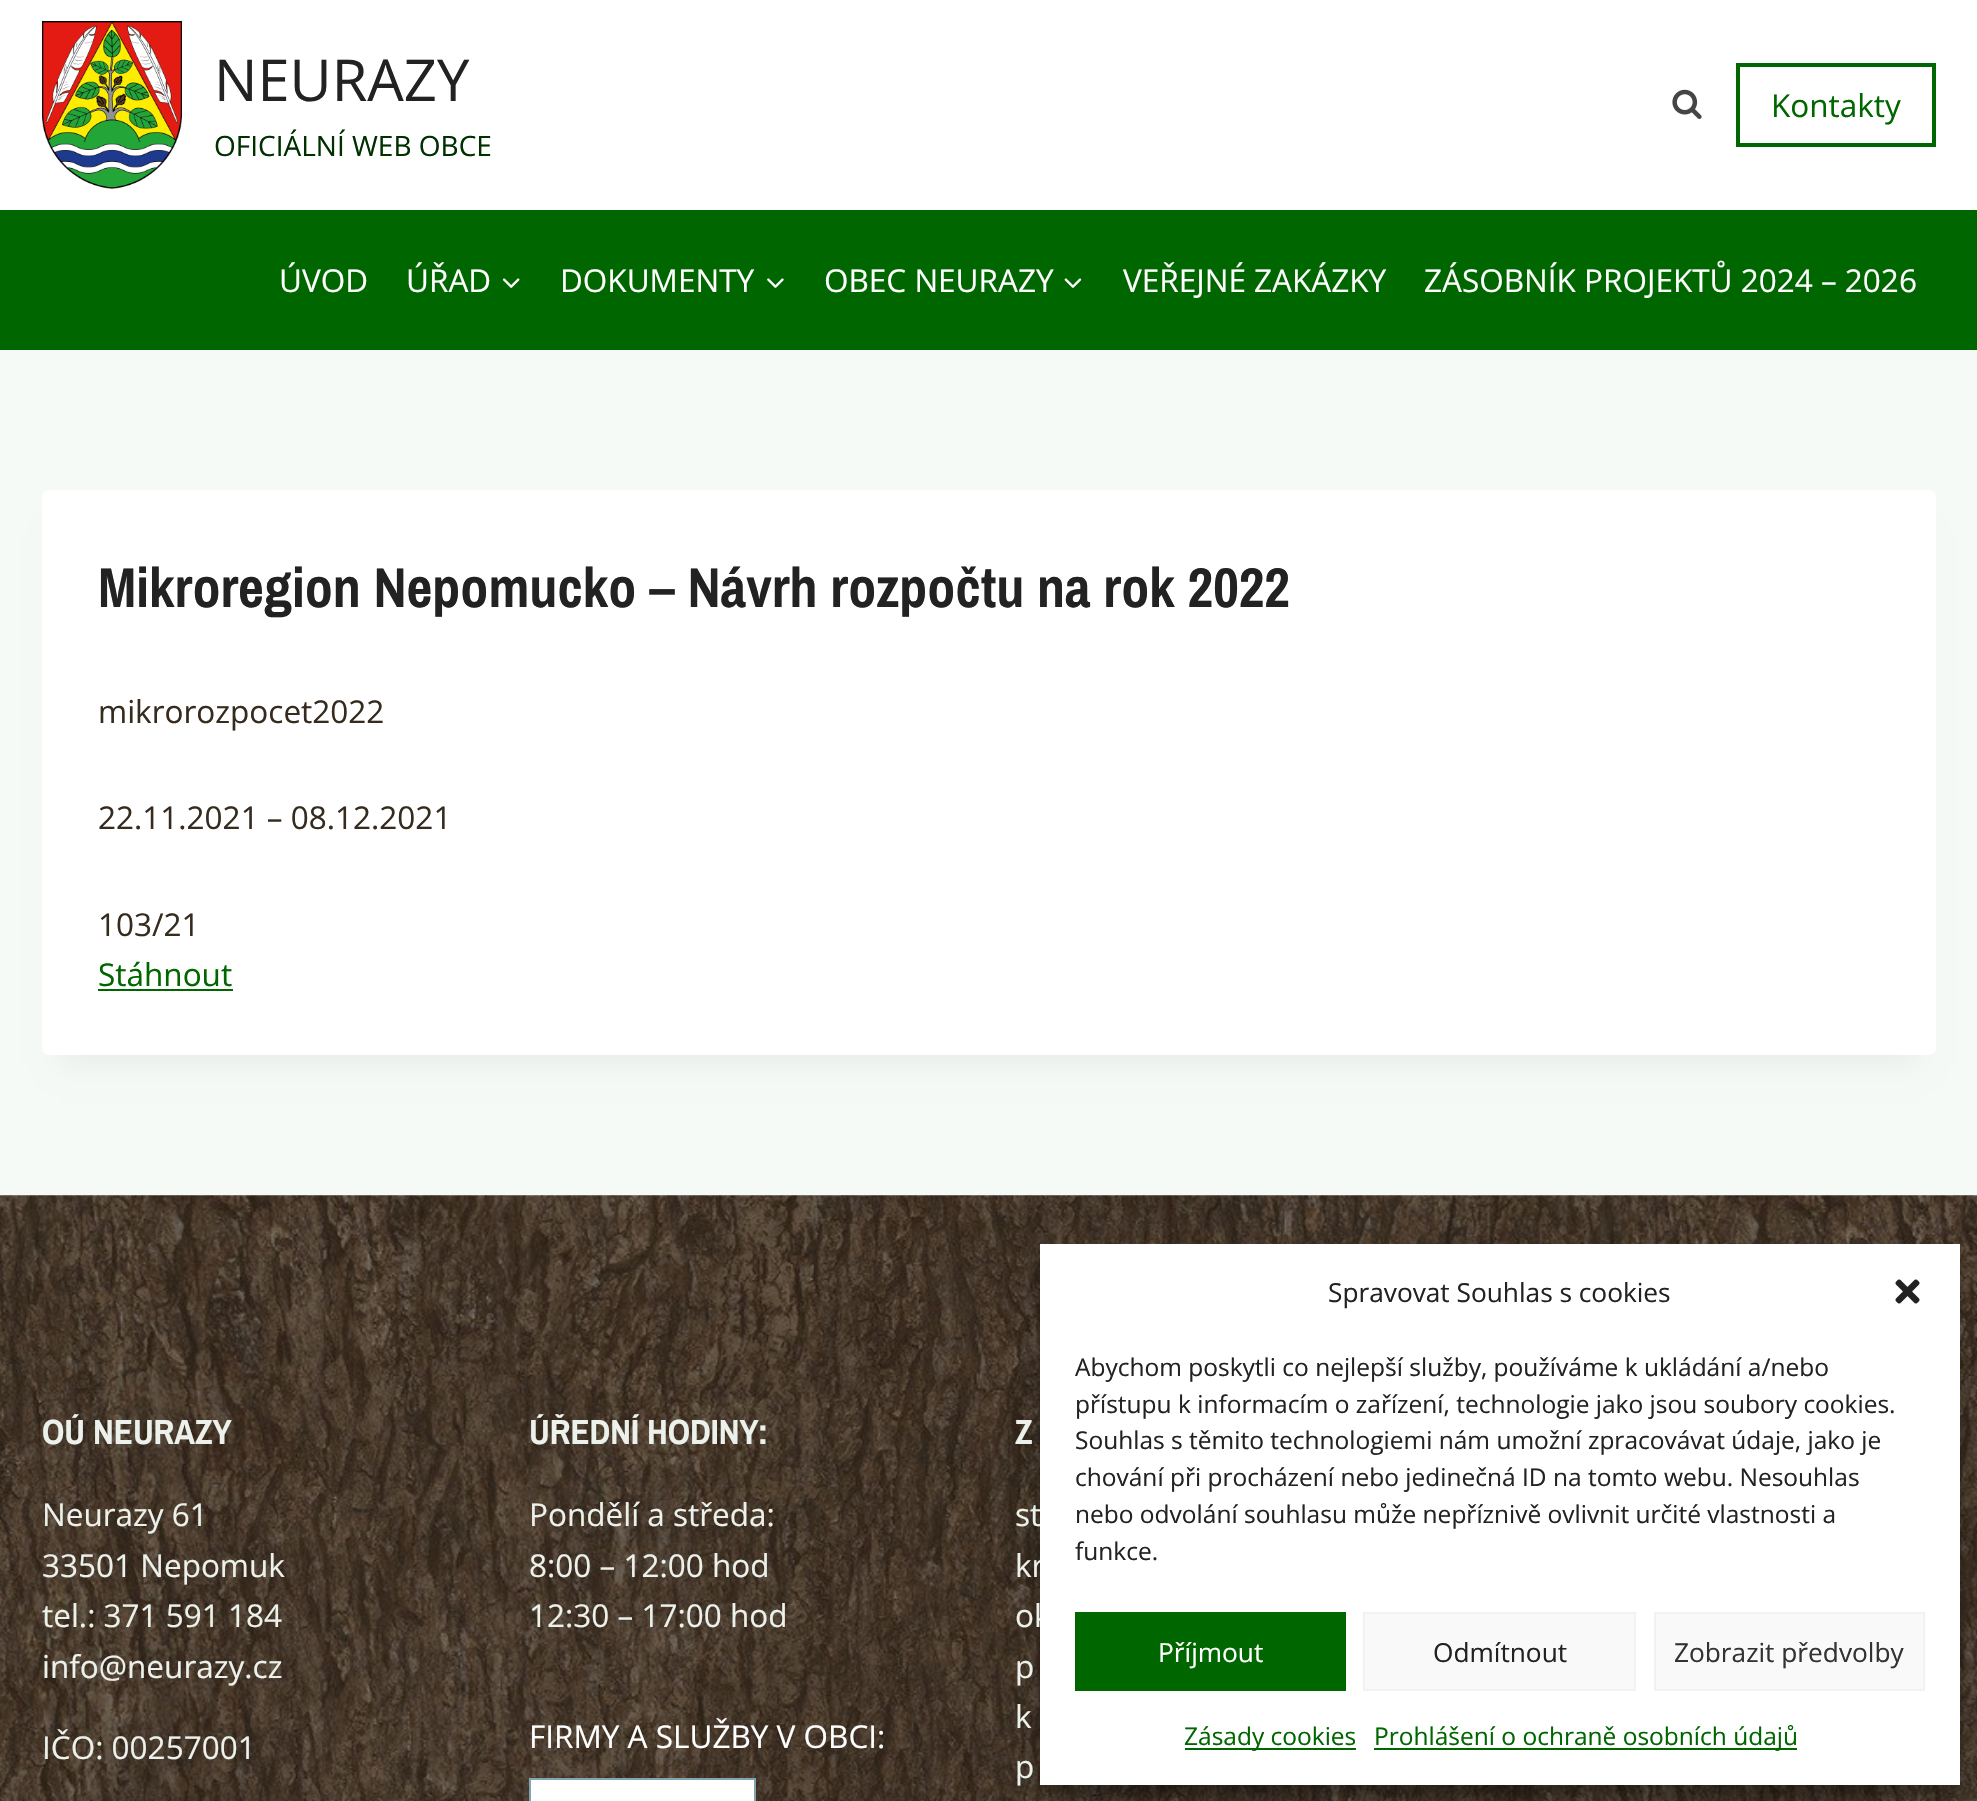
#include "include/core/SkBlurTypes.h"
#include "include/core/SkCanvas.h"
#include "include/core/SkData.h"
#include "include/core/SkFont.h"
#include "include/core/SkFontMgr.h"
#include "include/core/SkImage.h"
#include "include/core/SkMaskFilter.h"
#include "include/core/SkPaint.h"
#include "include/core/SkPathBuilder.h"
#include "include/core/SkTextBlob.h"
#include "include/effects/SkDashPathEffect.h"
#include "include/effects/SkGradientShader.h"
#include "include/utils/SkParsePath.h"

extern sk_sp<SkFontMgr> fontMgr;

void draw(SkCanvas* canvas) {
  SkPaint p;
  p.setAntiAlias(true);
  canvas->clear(SkColorSetRGB(246, 250, 246));
  p.setColor(SK_ColorWHITE);
  canvas->drawRect(SkRect::MakeLTRB(0, 0, 1977, 210), p);
  canvas->drawImageRect(SkImages::DeferredFromEncodedData(SkData::MakeFromFileName("images/1.png")), SkRect::MakeLTRB(42, 21, 182, 189), SkSamplingOptions());
  canvas->drawImageRect(SkImages::DeferredFromEncodedData(SkData::MakeFromFileName("images/2.png")), SkRect::MakeLTRB(1672, 89, 1702, 119), SkSamplingOptions());
  p.setStyle(SkPaint::kStroke_Style);
  p.setStrokeWidth(4);
  p.setColor(SkColorSetRGB(0, 102, 0));
  canvas->drawRect(SkRect::MakeLTRB(1738, 65, 1934, 145), p);
  p.setStyle(SkPaint::kFill_Style);
  canvas->drawRect(SkRect::MakeLTRB(0, 210, 1977, 350), p);
  canvas->drawImageRect(SkImages::DeferredFromEncodedData(SkData::MakeFromFileName("images/3.png")), SkRect::MakeLTRB(502, 278, 520, 288), SkSamplingOptions());
  canvas->drawImageRect(SkImages::DeferredFromEncodedData(SkData::MakeFromFileName("images/4.png")), SkRect::MakeLTRB(767, 278, 784, 288), SkSamplingOptions());
  canvas->drawImageRect(SkImages::DeferredFromEncodedData(SkData::MakeFromFileName("images/5.png")), SkRect::MakeLTRB(1064, 278, 1082, 288), SkSamplingOptions());
  p.setColor(SkColorSetARGB(13, 0, 0, 0));
  p.setMaskFilter(SkMaskFilter::MakeBlur(kNormal_SkBlurStyle, 13));
  canvas->drawRect(SkRect::MakeLTRB(60, 534, 1918, 1064), p);
  p.setMaskFilter(nullptr);
  p.setColor(SK_ColorWHITE);
  canvas->drawRoundRect(SkRect::MakeLTRB(42, 490, 1936, 1055), 7, 7, p);
  p.setColor(SkColorSetRGB(0, 102, 0));
  canvas->drawRect(SkRect::MakeLTRB(98, 989, 233, 991), p);
  canvas->drawImageRect(SkImages::DeferredFromEncodedData(SkData::MakeFromFileName("images/6.png")), SkRect::MakeLTRB(0, 1195, 1977, 1801), SkSamplingOptions());
  p.setColor(SK_ColorWHITE);
  canvas->drawRect(SkRect::MakeLTRB(530, 1779, 755, 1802), p);
  p.setStyle(SkPaint::kStroke_Style);
  p.setStrokeWidth(2);
  p.setColor(SkColorSetRGB(130, 164, 176));
  canvas->drawRect(SkRect::MakeLTRB(530, 1779, 755, 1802), p);
  p.setStyle(SkPaint::kFill_Style);
  p.setColor(SkColorSetARGB(59, 0, 0, 0));
  p.setMaskFilter(SkMaskFilter::MakeBlur(kNormal_SkBlurStyle, 5));
  canvas->drawRect(SkRect::MakeLTRB(1040, 1255, 1960, 1796), p);
  p.setMaskFilter(nullptr);
  p.setColor(SkColorSetARGB(48, 0, 0, 0));
  p.setMaskFilter(SkMaskFilter::MakeBlur(kNormal_SkBlurStyle, 17.5f));
  canvas->drawRect(SkRect::MakeLTRB(1040, 1262, 1960, 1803), p);
  p.setMaskFilter(nullptr);
  SkFont font1(fontMgr->matchFamilyStyle("Open Sans", SkFontStyle::Normal()), 57.75f);
  font1.setSubpixel(true);
  p.setColor(SkColorSetRGB(34, 34, 34));
  canvas->drawString("NEURAZY", 214, 101, font1, p);
  SkFont font2(fontMgr->matchFamilyStyle("Open Sans", SkFontStyle::Normal()), 28);
  font2.setSubpixel(true);
  p.setColor(SkColorSetRGB(0, 47, 0));
  canvas->drawString("OFICIÁLNÍ WEB OBCE", 214, 156, font2, p);
  SkFont font3(fontMgr->matchFamilyStyle("Open Sans", SkFontStyle::Normal()), 31.5f);
  font3.setSubpixel(true);
  p.setColor(SkColorSetRGB(0, 102, 0));
  canvas->drawString("Kontakty", 1771, 117, font3, p);
  p.setColor(SK_ColorWHITE);
  canvas->drawString("ÚVOD", 279, 292, font3, p);
  canvas->drawString("ÚŘAD", 406, 292, font3, p);
  canvas->drawString("DOKUMENTY", 560, 292, font3, p);
  canvas->drawString("OBEC NEURAZY", 824, 292, font3, p);
  canvas->drawString("VEŘEJNÉ ZAKÁZKY", 1123, 292, font3, p);
  canvas->drawString("ZÁSOBNÍK PROJEKTŮ 2024 – 2026", 1424, 292, font3, p);
  SkFont font4(fontMgr->matchFamilyStyle("Archivo Narrow", SkFontStyle::Bold()), 56);
  font4.setSubpixel(true);
  p.setColor(SkColorSetRGB(34, 34, 34));
  canvas->drawString("Mikroregion Nepomucko – Návrh rozpočtu na rok 2022", 98, 607, font4, p);
  p.setColor(SkColorSetRGB(53, 43, 31));
  canvas->drawString("mikrorozpocet2022", 98, 723, font3, p);
  canvas->drawString("22.11.2021 – 08.12.2021", 98, 829, font3, p);
  canvas->drawString("103/21", 98, 936, font3, p);
  p.setColor(SkColorSetRGB(0, 102, 0));
  canvas->drawString("Stáhnout", 98, 986, font3, p);
  SkFont font5(fontMgr->matchFamilyStyle("Archivo Narrow", SkFontStyle::Bold()), 35);
  font5.setSubpixel(true);
  p.setColor(SkColorSetRGB(236, 241, 235));
  canvas->drawString("OÚ NEURAZY", 42, 1444, font5, p);
  canvas->drawString("Neurazy 61", 42, 1526, font3, p);
  canvas->drawString("33501 Nepomuk", 42, 1577, font3, p);
  canvas->drawString("tel.: 371 591 184", 42, 1627, font3, p);
  canvas->drawString("info@neurazy.cz", 42, 1678, font3, p);
  canvas->drawString("IČO: 00257001", 42, 1759, font3, p);
  canvas->drawString("ÚŘEDNÍ HODINY:", 529, 1444, font5, p);
  canvas->drawString("Pondělí a středa:", 529, 1526, font3, p);
  canvas->drawString("8:00 – 12:00 hod", 529, 1577, font3, p);
  canvas->drawString("12:30 – 17:00 hod", 529, 1627, font3, p);
  p.setColor(SK_ColorWHITE);
  canvas->drawString("FIRMY A SLUŽBY V OBCI:", 529, 1748, font3, p);
  p.setColor(SkColorSetRGB(236, 241, 235));
  canvas->drawString("Z", 1015, 1444, font5, p);
  canvas->drawString("st", 1015, 1526, font3, p);
  canvas->drawString("kr", 1015, 1577, font3, p);
  canvas->drawString("ok", 1015, 1627, font3, p);
  canvas->drawString("p", 1015, 1678, font3, p);
  canvas->drawString("k", 1015, 1728, font3, p);
  canvas->drawString("p", 1015, 1778, font3, p);
  p.setColor(SK_ColorWHITE);
  canvas->drawRect(SkRect::MakeLTRB(1040, 1244, 1960, 1785), p);
  SkFont font6(fontMgr->matchFamilyStyle("Open Sans", SkFontStyle::Normal()), 26.25f);
  font6.setSubpixel(true);
  p.setColor(SkColorSetRGB(34, 34, 34));
  canvas->drawString("Spravovat Souhlas s cookies", 1328, 1302, font6, p);
  canvas->drawImageRect(SkImages::DeferredFromEncodedData(SkData::MakeFromFileName("images/7.png")), SkRect::MakeLTRB(1895, 1279, 1920, 1304), SkSamplingOptions());
  SkFont font7(fontMgr->matchFamilyStyle("Open Sans", SkFontStyle::Normal()), 24.5f);
  font7.setSubpixel(true);
  canvas->drawString("Abychom poskytli co nejlepší služby, používáme k ukládání a/nebo", 1075, 1376, font7, p);
  canvas->drawString("přístupu k informacím o zařízení, technologie jako jsou soubory cookies.", 1075, 1413, font7, p);
  canvas->drawString("Souhlas s těmito technologiemi nám umožní zpracovávat údaje, jako je", 1075, 1449, font7, p);
  canvas->drawString("chování při procházení nebo jedinečná ID na tomto webu. Nesouhlas", 1075, 1486, font7, p);
  canvas->drawString("nebo odvolání souhlasu může nepříznivě ovlivnit určité vlastnosti a", 1075, 1523, font7, p);
  canvas->drawString("funkce.", 1075, 1560, font7, p);
  p.setColor(SkColorSetRGB(0, 102, 0));
  canvas->drawRect(SkRect::MakeLTRB(1075, 1612, 1346, 1691), p);
  p.setColor(SK_ColorWHITE);
  canvas->drawString("Příjmout", 1158, 1662, font6, p);
  p.setColor(SkColorSetRGB(249, 249, 249));
  canvas->drawRect(SkRect::MakeLTRB(1364, 1613, 1635, 1690), p);
  p.setStyle(SkPaint::kStroke_Style);
  p.setColor(SkColorSetRGB(242, 242, 242));
  canvas->drawRect(SkRect::MakeLTRB(1364, 1613, 1635, 1690), p);
  p.setStyle(SkPaint::kFill_Style);
  p.setColor(SkColorSetRGB(34, 34, 34));
  canvas->drawString("Odmítnout", 1433, 1662, font6, p);
  p.setColor(SkColorSetRGB(249, 249, 249));
  canvas->drawRect(SkRect::MakeLTRB(1655, 1613, 1924, 1690), p);
  p.setStyle(SkPaint::kStroke_Style);
  p.setColor(SkColorSetRGB(242, 242, 242));
  canvas->drawRect(SkRect::MakeLTRB(1655, 1613, 1924, 1690), p);
  p.setStyle(SkPaint::kFill_Style);
  p.setColor(SkColorSetRGB(51, 51, 51));
  canvas->drawString("Zobrazit předvolby", 1674, 1662, font6, p);
  p.setColor(SkColorSetRGB(0, 102, 0));
  canvas->drawRect(SkRect::MakeLTRB(1185, 1748, 1356, 1750), p);
  canvas->drawString("Zásady cookies", 1184, 1745, font7, p);
  canvas->drawRect(SkRect::MakeLTRB(1374, 1748, 1797, 1750), p);
  canvas->drawString("Prohlášení o ochraně osobních údajů", 1374, 1745, font7, p);
}
